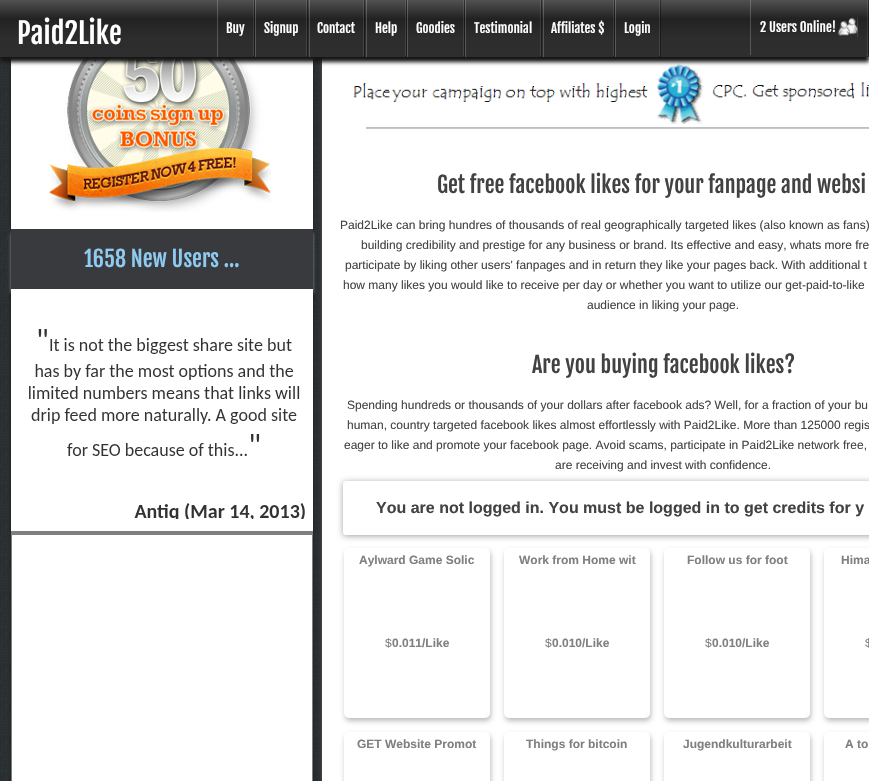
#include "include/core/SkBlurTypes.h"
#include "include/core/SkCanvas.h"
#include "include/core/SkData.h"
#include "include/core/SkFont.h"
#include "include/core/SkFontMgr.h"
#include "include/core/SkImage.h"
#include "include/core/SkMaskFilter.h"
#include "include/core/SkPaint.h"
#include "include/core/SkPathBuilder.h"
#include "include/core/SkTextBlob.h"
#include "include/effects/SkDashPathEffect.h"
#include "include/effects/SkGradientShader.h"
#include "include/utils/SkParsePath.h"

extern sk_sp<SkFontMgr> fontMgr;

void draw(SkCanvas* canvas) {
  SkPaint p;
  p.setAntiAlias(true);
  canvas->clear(SK_ColorWHITE);
  canvas->drawImageRect(SkImages::DeferredFromEncodedData(SkData::MakeFromFileName("images/1.png")), SkRect::MakeLTRB(0, 57, 322, 781), SkSamplingOptions());
  p.setColor(SkColorSetRGB(22, 22, 22));
  p.setMaskFilter(SkMaskFilter::MakeBlur(kNormal_SkBlurStyle, 1.5f));
  canvas->drawRect(SkRect::MakeLTRB(11, -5, 313, 300), p);
  p.setMaskFilter(nullptr);
  p.setColor(SK_ColorWHITE);
  canvas->drawRect(SkRect::MakeLTRB(11, 57, 313, 229), p);
  canvas->drawImageRect(SkImages::DeferredFromEncodedData(SkData::MakeFromFileName("images/3.png")), SkRect::MakeLTRB(49, 57, 271, 212), SkSamplingOptions());
  p.setColor(SkColorSetRGB(100, 100, 100));
  p.setMaskFilter(SkMaskFilter::MakeBlur(kNormal_SkBlurStyle, 1.5f));
  canvas->drawRoundRect(SkRect::MakeLTRB(322, -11, 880, 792), 6, 6, p);
  p.setMaskFilter(nullptr);
  p.setColor(SK_ColorWHITE);
  canvas->drawRect(SkRect::MakeLTRB(322, 57, 869, 781), p);
  canvas->save();
  canvas->clipPath(SkPathBuilder(SkPathFillType::kEvenOdd).moveTo(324, 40).lineTo(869, 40).lineTo(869, 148).lineTo(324, 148).close().moveTo(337, 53).lineTo(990, 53).lineTo(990, 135).lineTo(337, 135).close().detach(), true);
  p.setMaskFilter(SkMaskFilter::MakeBlur(kNormal_SkBlurStyle, 4));
  canvas->drawRect(SkRect::MakeLTRB(337, 53, 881, 135), p);
  p.setMaskFilter(nullptr);
  canvas->restore();
  canvas->drawImageRect(SkImages::DeferredFromEncodedData(SkData::MakeFromFileName("images/5.png")), SkRect::MakeLTRB(346, 57, 869, 129), SkSamplingOptions());
  p.setColor(SkColorSetRGB(20, 20, 20));
  p.setMaskFilter(SkMaskFilter::MakeBlur(kNormal_SkBlurStyle, 2));
  canvas->drawRect(SkRect::MakeLTRB(0, 5, 869, 62), p);
  p.setMaskFilter(nullptr);
  {
    const SkColor colors[] = {SkColorSetRGB(81, 81, 81), SkColorSetRGB(34, 34, 34), SkColorSetRGB(45, 45, 45), SkColorSetRGB(46, 46, 46)};
    const float stops[] = {0, 0.33f, 0.67f, 1};
    const SkPoint ends[] = {{435, 0}, {435, 57}};
    p.setShader(SkGradientShader::MakeLinear(ends, colors, stops, 4, SkTileMode::kClamp));
    p.setAlpha(255);
  }
  canvas->drawRect(SkRect::MakeLTRB(0, 0, 869, 57), p);
  p.setShader(nullptr);
  p.setColor(SkColorSetARGB(102, 0, 0, 0));
  canvas->drawRect(SkRect::MakeLTRB(254, 0, 255, 57), p);
  p.setColor(SkColorSetARGB(51, 255, 255, 255));
  canvas->drawRect(SkRect::MakeLTRB(217, 0, 218, 57), p);
  p.setColor(SkColorSetARGB(26, 255, 255, 255));
  canvas->drawRect(SkRect::MakeLTRB(253, 0, 254, 56), p);
  p.setColor(SkColorSetARGB(102, 0, 0, 0));
  canvas->drawRect(SkRect::MakeLTRB(307, 0, 308, 57), p);
  p.setColor(SkColorSetARGB(51, 255, 255, 255));
  canvas->drawRect(SkRect::MakeLTRB(255, 0, 256, 57), p);
  p.setColor(SkColorSetARGB(26, 255, 255, 255));
  canvas->drawRect(SkRect::MakeLTRB(306, 0, 307, 56), p);
  p.setColor(SkColorSetARGB(102, 0, 0, 0));
  canvas->drawRect(SkRect::MakeLTRB(364, 0, 365, 57), p);
  p.setColor(SkColorSetARGB(51, 255, 255, 255));
  canvas->drawRect(SkRect::MakeLTRB(309, 0, 310, 57), p);
  p.setColor(SkColorSetARGB(26, 255, 255, 255));
  canvas->drawRect(SkRect::MakeLTRB(363, 0, 364, 56), p);
  p.setColor(SkColorSetARGB(102, 0, 0, 0));
  canvas->drawRect(SkRect::MakeLTRB(406, 0, 407, 57), p);
  p.setColor(SkColorSetARGB(51, 255, 255, 255));
  canvas->drawRect(SkRect::MakeLTRB(366, 0, 367, 57), p);
  p.setColor(SkColorSetARGB(26, 255, 255, 255));
  canvas->drawRect(SkRect::MakeLTRB(405, 0, 406, 56), p);
  p.setColor(SkColorSetARGB(102, 0, 0, 0));
  canvas->drawRect(SkRect::MakeLTRB(464, 0, 465, 57), p);
  p.setColor(SkColorSetARGB(51, 255, 255, 255));
  canvas->drawRect(SkRect::MakeLTRB(407, 0, 408, 57), p);
  p.setColor(SkColorSetARGB(26, 255, 255, 255));
  canvas->drawRect(SkRect::MakeLTRB(463, 0, 464, 56), p);
  p.setColor(SkColorSetARGB(102, 0, 0, 0));
  canvas->drawRect(SkRect::MakeLTRB(541, 0, 542, 57), p);
  p.setColor(SkColorSetARGB(51, 255, 255, 255));
  canvas->drawRect(SkRect::MakeLTRB(465, 0, 466, 57), p);
  p.setColor(SkColorSetARGB(26, 255, 255, 255));
  canvas->drawRect(SkRect::MakeLTRB(540, 0, 541, 56), p);
  p.setColor(SkColorSetARGB(102, 0, 0, 0));
  canvas->drawRect(SkRect::MakeLTRB(614, 0, 615, 57), p);
  p.setColor(SkColorSetARGB(51, 255, 255, 255));
  canvas->drawRect(SkRect::MakeLTRB(543, 0, 544, 57), p);
  p.setColor(SkColorSetARGB(26, 255, 255, 255));
  canvas->drawRect(SkRect::MakeLTRB(613, 0, 614, 56), p);
  p.setColor(SkColorSetARGB(102, 0, 0, 0));
  canvas->drawRect(SkRect::MakeLTRB(660, 0, 661, 57), p);
  p.setColor(SkColorSetARGB(51, 255, 255, 255));
  canvas->drawRect(SkRect::MakeLTRB(615, 0, 616, 57), p);
  p.setColor(SkColorSetARGB(26, 255, 255, 255));
  canvas->drawRect(SkRect::MakeLTRB(659, 0, 660, 56), p);
  p.setColor(SkColorSetARGB(102, 0, 0, 0));
  canvas->drawRect(SkRect::MakeLTRB(868, 0, 869, 55), p);
  p.setColor(SkColorSetARGB(51, 255, 255, 255));
  canvas->drawRect(SkRect::MakeLTRB(750, 0, 751, 55), p);
  p.setColor(SkColorSetARGB(26, 255, 255, 255));
  canvas->drawRect(SkRect::MakeLTRB(867, 0, 868, 56), p);
  canvas->drawImageRect(SkImages::DeferredFromEncodedData(SkData::MakeFromFileName("images/2.png")), SkRect::MakeLTRB(838, 17, 858, 37), SkSamplingOptions());
  p.setColor(SkColorSetRGB(155, 155, 155));
  p.setMaskFilter(SkMaskFilter::MakeBlur(kNormal_SkBlurStyle, 1.5f));
  canvas->drawRect(SkRect::MakeLTRB(11, 233, 313, 293), p);
  p.setMaskFilter(nullptr);
  p.setColor(SkColorSetRGB(57, 58, 61));
  canvas->drawRect(SkRect::MakeLTRB(11, 229, 313, 289), p);
  p.setColor(SkColorSetRGB(22, 22, 22));
  p.setMaskFilter(SkMaskFilter::MakeBlur(kNormal_SkBlurStyle, 1.5f));
  canvas->drawRect(SkRect::MakeLTRB(11, 292, 313, 534), p);
  p.setMaskFilter(nullptr);
  p.setColor(SK_ColorWHITE);
  canvas->drawRect(SkRect::MakeLTRB(11, 289, 313, 531), p);
  canvas->drawImageRect(SkImages::DeferredFromEncodedData(SkData::MakeFromFileName("images/4.png")), SkRect::MakeLTRB(29, 329, 305, 519), SkSamplingOptions());
  p.setColor(SkColorSetRGB(22, 22, 22));
  p.setMaskFilter(SkMaskFilter::MakeBlur(kNormal_SkBlurStyle, 1.5f));
  canvas->drawRect(SkRect::MakeLTRB(11, 534, 313, 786), p);
  p.setMaskFilter(nullptr);
  p.setColor(SK_ColorWHITE);
  canvas->drawRect(SkRect::MakeLTRB(12, 535, 312, 781), p);
  p.setColor(SkColorSetRGB(128, 128, 128));
  canvas->drawRect(SkRect::MakeLTRB(11, 531, 313, 535), p);
  canvas->drawRect(SkRect::MakeLTRB(312, 531, 313, 781), p);
  canvas->drawRect(SkRect::MakeLTRB(11, 531, 12, 781), p);
  p.setColor(SkColorSetRGB(160, 160, 160));
  p.setMaskFilter(SkMaskFilter::MakeBlur(kNormal_SkBlurStyle, 3));
  canvas->drawRoundRect(SkRect::MakeLTRB(343, 482, 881, 536), 3, 3, p);
  p.setMaskFilter(nullptr);
  p.setColor(SK_ColorWHITE);
  canvas->drawRoundRect(SkRect::MakeLTRB(343, 481, 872, 535), 3, 3, p);
  p.setColor(SkColorSetRGB(190, 190, 190));
  p.setMaskFilter(SkMaskFilter::MakeBlur(kNormal_SkBlurStyle, 2.5f));
  canvas->drawRoundRect(SkRect::MakeLTRB(345, 551, 491, 721), 5, 5, p);
  p.setMaskFilter(nullptr);
  p.setColor(SK_ColorWHITE);
  canvas->drawRoundRect(SkRect::MakeLTRB(344, 548, 490, 718), 5, 5, p);
  p.setColor(SkColorSetRGB(190, 190, 190));
  p.setMaskFilter(SkMaskFilter::MakeBlur(kNormal_SkBlurStyle, 2.5f));
  canvas->drawRoundRect(SkRect::MakeLTRB(505, 551, 651, 721), 5, 5, p);
  p.setMaskFilter(nullptr);
  p.setColor(SK_ColorWHITE);
  canvas->drawRoundRect(SkRect::MakeLTRB(504, 548, 650, 718), 5, 5, p);
  p.setColor(SkColorSetRGB(190, 190, 190));
  p.setMaskFilter(SkMaskFilter::MakeBlur(kNormal_SkBlurStyle, 2.5f));
  canvas->drawRoundRect(SkRect::MakeLTRB(665, 551, 811, 721), 5, 5, p);
  p.setMaskFilter(nullptr);
  p.setColor(SK_ColorWHITE);
  canvas->drawRoundRect(SkRect::MakeLTRB(664, 548, 810, 718), 5, 5, p);
  p.setColor(SkColorSetRGB(190, 190, 190));
  p.setMaskFilter(SkMaskFilter::MakeBlur(kNormal_SkBlurStyle, 2.5f));
  canvas->drawRoundRect(SkRect::MakeLTRB(825, 551, 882, 721), 5, 5, p);
  p.setMaskFilter(nullptr);
  p.setColor(SK_ColorWHITE);
  canvas->drawRoundRect(SkRect::MakeLTRB(824, 548, 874, 718), 5, 5, p);
  p.setColor(SkColorSetRGB(190, 190, 190));
  p.setMaskFilter(SkMaskFilter::MakeBlur(kNormal_SkBlurStyle, 2.5f));
  canvas->drawRoundRect(SkRect::MakeLTRB(345, 735, 491, 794), 5, 5, p);
  p.setMaskFilter(nullptr);
  p.setColor(SK_ColorWHITE);
  canvas->drawRoundRect(SkRect::MakeLTRB(344, 732, 490, 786), 5, 5, p);
  p.setColor(SkColorSetRGB(190, 190, 190));
  p.setMaskFilter(SkMaskFilter::MakeBlur(kNormal_SkBlurStyle, 2.5f));
  canvas->drawRoundRect(SkRect::MakeLTRB(505, 735, 651, 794), 5, 5, p);
  p.setMaskFilter(nullptr);
  p.setColor(SK_ColorWHITE);
  canvas->drawRoundRect(SkRect::MakeLTRB(504, 732, 650, 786), 5, 5, p);
  p.setColor(SkColorSetRGB(190, 190, 190));
  p.setMaskFilter(SkMaskFilter::MakeBlur(kNormal_SkBlurStyle, 2.5f));
  canvas->drawRoundRect(SkRect::MakeLTRB(665, 735, 811, 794), 5, 5, p);
  p.setMaskFilter(nullptr);
  p.setColor(SK_ColorWHITE);
  canvas->drawRoundRect(SkRect::MakeLTRB(664, 732, 810, 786), 5, 5, p);
  p.setColor(SkColorSetRGB(190, 190, 190));
  p.setMaskFilter(SkMaskFilter::MakeBlur(kNormal_SkBlurStyle, 2.5f));
  canvas->drawRoundRect(SkRect::MakeLTRB(825, 735, 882, 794), 5, 5, p);
  p.setMaskFilter(nullptr);
  p.setColor(SK_ColorWHITE);
  canvas->drawRoundRect(SkRect::MakeLTRB(824, 732, 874, 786), 5, 5, p);
  SkFont font1(fontMgr->matchFamilyStyle("Fjalla One", SkFontStyle::Normal()), 28.5f);
  font1.setSubpixel(true);
  canvas->drawString("Paid2Like", 17, 44, font1, p);
  SkFont font2(fontMgr->matchFamilyStyle("Fjalla One", SkFontStyle::Normal()), 13);
  font2.setSubpixel(true);
  canvas->drawString("Buy", 226, 33, font2, p);
  canvas->drawString("Signup", 264, 33, font2, p);
  canvas->drawString("Contact", 317, 33, font2, p);
  canvas->drawString("Help", 375, 33, font2, p);
  canvas->drawString("Goodies", 416, 33, font2, p);
  canvas->drawString("Testimonial", 474, 33, font2, p);
  canvas->drawString("Affiliates $", 551, 33, font2, p);
  canvas->drawString("Login", 624, 33, font2, p);
  canvas->drawString("2 Users Online!", 760, 32, font2, p);
  SkFont font3(fontMgr->matchFamilyStyle("Fjalla One", SkFontStyle::Normal()), 22);
  font3.setSubpixel(true);
  p.setColor(SkColorSetRGB(143, 202, 241));
  canvas->drawString("1658 New Users ...", 84, 267, font3, p);
  p.setColor(SkColorSetRGB(66, 66, 66));
  canvas->drawString("Get free facebook likes for your fanpage and websi", 437, 193, font3, p);
  SkFont font4(fontMgr->matchFamilyStyle("Liberation Sans", SkFontStyle::Normal()), 12);
  font4.setSubpixel(true);
  canvas->drawString("Paid2Like can bring hundres of thousands of real geographically targeted likes (also known as fans)", 340, 229, font4, p);
  canvas->drawString("building credibility and prestige for any business or brand. Its effective and easy, whats more fre", 361, 249, font4, p);
  canvas->drawString("participate by liking other users' fanpages and in return they like your pages back. With additional t", 345, 269, font4, p);
  canvas->drawString("how many likes you would like to receive per day or whether you want to utilize our get-paid-to-like", 343, 289, font4, p);
  canvas->drawString("audience in liking your page.", 587, 309, font4, p);
  canvas->drawString("Are you buying facebook likes?", 532, 373, font3, p);
  canvas->drawString("Spending hundreds or thousands of your dollars after facebook ads? Well, for a fraction of your bu", 347, 409, font4, p);
  canvas->drawString("human, country targeted facebook likes almost effortlessly with Paid2Like. More than 125000 regis", 347, 429, font4, p);
  canvas->drawString("eager to like and promote your facebook page. Avoid scams, participate in Paid2Like network free,", 344, 449, font4, p);
  canvas->drawString("are receiving and invest with confidence.", 555, 469, font4, p);
  SkFont font5(fontMgr->matchFamilyStyle("Liberation Sans", SkFontStyle::Bold()), 16);
  font5.setSubpixel(true);
  canvas->drawString("You are not logged in. You must be logged in to get credits for y", 376, 513, font5, p);
  SkFont font6(fontMgr->matchFamilyStyle("Liberation Sans", SkFontStyle::Bold()), 12);
  font6.setSubpixel(true);
  p.setColor(SkColorSetRGB(128, 128, 128));
  canvas->drawString("Aylward Game Solic", 359, 564, font6, p);
  canvas->drawString("$", 385, 647, font4, p);
  canvas->drawString("0.011/Like", 392, 647, font6, p);
  canvas->drawString("Work from Home wit", 519, 564, font6, p);
  canvas->drawString("$", 545, 647, font4, p);
  canvas->drawString("0.010/Like", 552, 647, font6, p);
  canvas->drawString("Follow us for foot", 687, 564, font6, p);
  canvas->drawString("$", 705, 647, font4, p);
  canvas->drawString("0.010/Like", 712, 647, font6, p);
  canvas->drawString("Hima", 841, 564, font6, p);
  canvas->drawString("$", 865, 647, font4, p);
  canvas->drawString("GET Website Promot", 357, 748, font6, p);
  canvas->drawString("Things for bitcoin", 526, 748, font6, p);
  canvas->drawString("Jugendkulturarbeit", 683, 748, font6, p);
  canvas->drawString("A to", 845, 748, font6, p);
}
